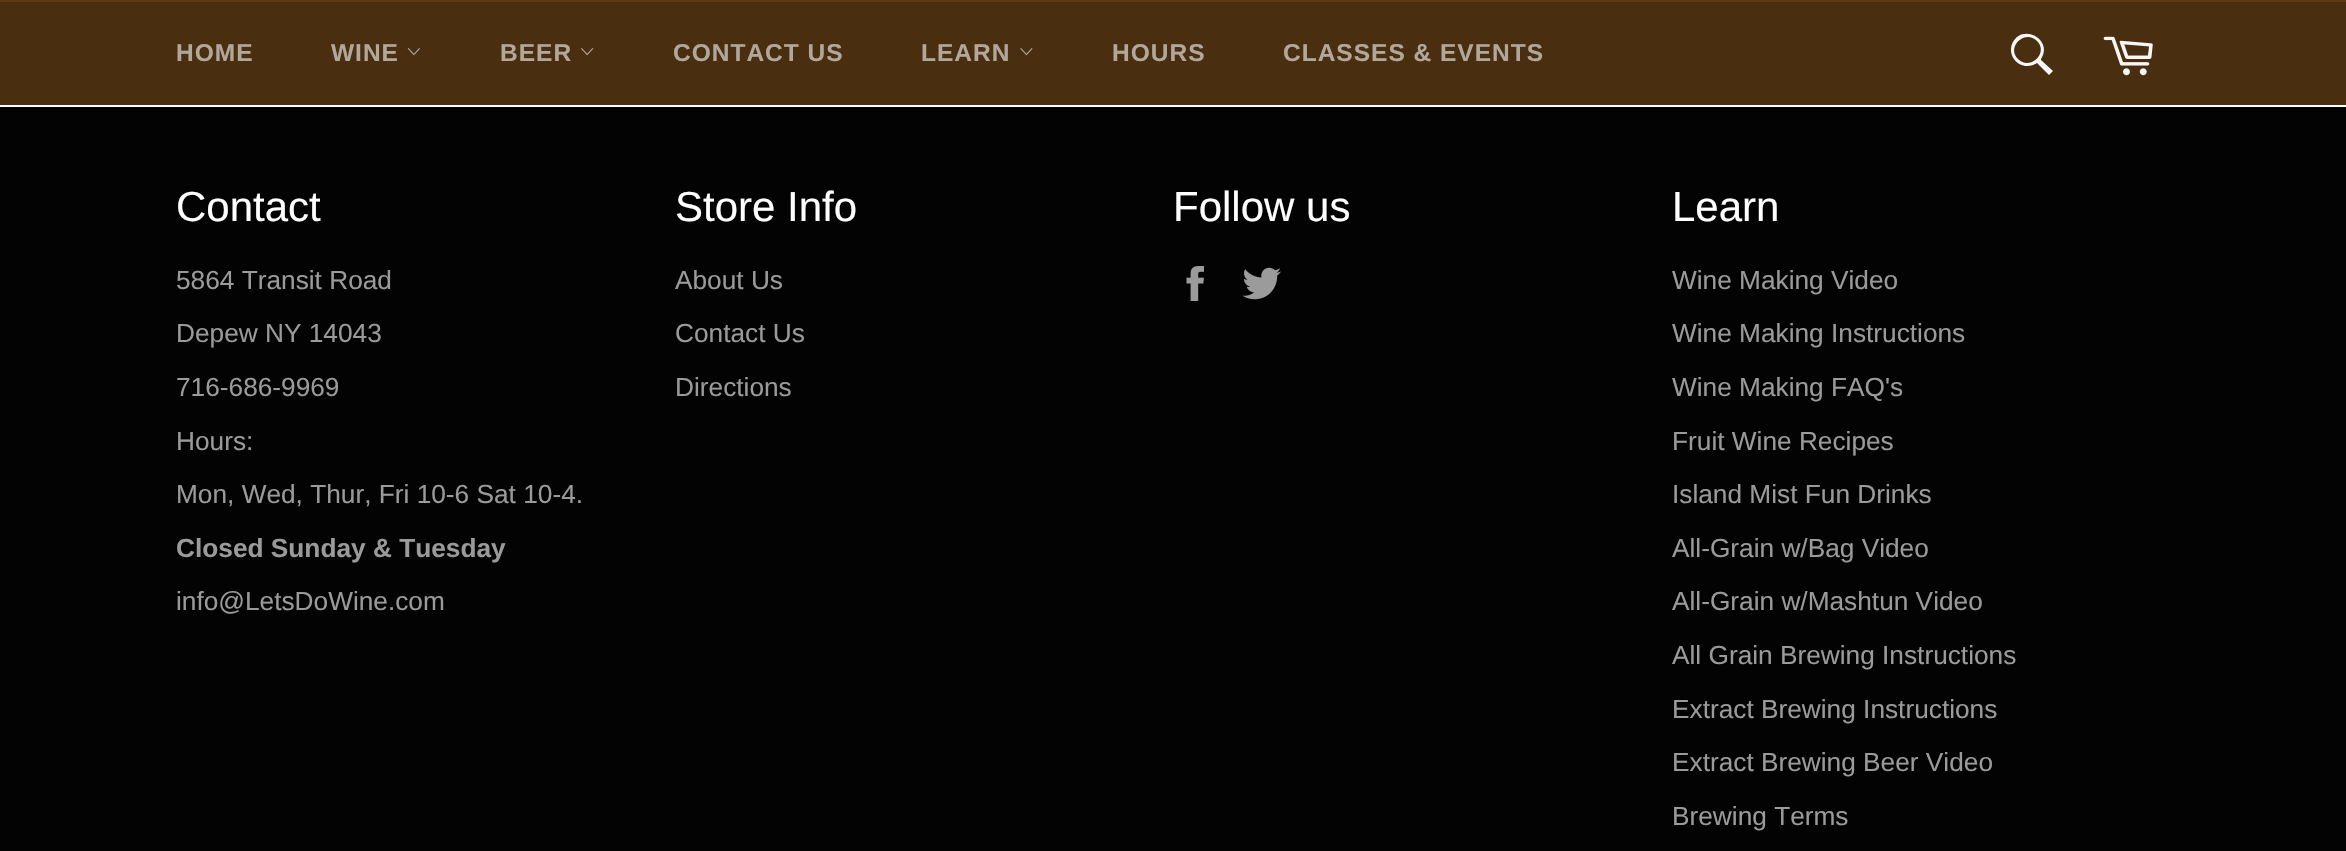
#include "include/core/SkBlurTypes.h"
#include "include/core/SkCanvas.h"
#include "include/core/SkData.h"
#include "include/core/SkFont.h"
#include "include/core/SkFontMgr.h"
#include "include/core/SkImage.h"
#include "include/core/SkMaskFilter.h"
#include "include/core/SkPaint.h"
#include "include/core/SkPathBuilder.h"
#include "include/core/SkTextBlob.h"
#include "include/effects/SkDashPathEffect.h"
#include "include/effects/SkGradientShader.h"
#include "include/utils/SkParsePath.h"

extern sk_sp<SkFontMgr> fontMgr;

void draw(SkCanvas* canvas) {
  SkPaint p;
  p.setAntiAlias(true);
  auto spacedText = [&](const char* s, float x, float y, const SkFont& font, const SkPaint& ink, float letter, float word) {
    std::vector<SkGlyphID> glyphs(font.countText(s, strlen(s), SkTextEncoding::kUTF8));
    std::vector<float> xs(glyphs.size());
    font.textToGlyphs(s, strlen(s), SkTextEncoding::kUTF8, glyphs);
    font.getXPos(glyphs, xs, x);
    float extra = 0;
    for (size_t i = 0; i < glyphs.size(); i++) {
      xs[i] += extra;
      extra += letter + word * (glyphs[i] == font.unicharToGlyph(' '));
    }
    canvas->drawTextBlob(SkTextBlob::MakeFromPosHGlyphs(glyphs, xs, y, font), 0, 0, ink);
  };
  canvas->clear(SK_ColorWHITE);
  p.setColor(SkColorSetRGB(74, 46, 16));
  canvas->drawRect(SkRect::MakeLTRB(0, 2, 2346, 105), p);
  p.setColor(SkColorSetRGB(95, 59, 21));
  canvas->drawRect(SkRect::MakeLTRB(0, 0, 2346, 2), p);
  canvas->drawImageRect(SkImages::DeferredFromEncodedData(SkData::MakeFromFileName("images/1.png")), SkRect::MakeLTRB(407, 48, 420, 56), SkSamplingOptions());
  canvas->drawImageRect(SkImages::DeferredFromEncodedData(SkData::MakeFromFileName("images/2.png")), SkRect::MakeLTRB(581, 48, 594, 56), SkSamplingOptions());
  canvas->drawImageRect(SkImages::DeferredFromEncodedData(SkData::MakeFromFileName("images/3.png")), SkRect::MakeLTRB(1020, 48, 1033, 56), SkSamplingOptions());
  p.setColor(SkColorSetRGB(247, 247, 247));
  canvas->drawPath(SkPathBuilder().moveTo(2041, 59).cubicTo(2054, 39, 2021, 22, 2012, 44).cubicTo(2010, 49, 2011, 55, 2014, 59).cubicTo(2019, 67, 2030, 68, 2037, 63).lineTo(2049, 75).lineTo(2053, 71).lineTo(2041, 60).close().moveTo(2037, 41).cubicTo(2049, 53, 2030, 71, 2018, 59).cubicTo(2006, 47, 2025, 29, 2037, 41).close().detach(), p);
  canvas->drawImageRect(SkImages::DeferredFromEncodedData(SkData::MakeFromFileName("images/4.png")), SkRect::MakeLTRB(2103, 36, 2153, 76), SkSamplingOptions());
  p.setColor(SkColorSetRGB(3, 3, 3));
  canvas->drawRect(SkRect::MakeLTRB(0, 107, 2346, 851), p);
  canvas->drawImageRect(SkImages::DeferredFromEncodedData(SkData::MakeFromFileName("images/5.png")), SkRect::MakeLTRB(1186, 266, 1204, 301), SkSamplingOptions());
  canvas->drawImageRect(SkImages::DeferredFromEncodedData(SkData::MakeFromFileName("images/6.png")), SkRect::MakeLTRB(1242, 267, 1281, 300), SkSamplingOptions());
  SkFont font1(fontMgr->matchFamilyStyle("Liberation Sans", SkFontStyle::Bold()), 24.5f);
  font1.setSubpixel(true);
  p.setColor(SkColorSetRGB(178, 167, 155));
  spacedText("HOME", 176, 61, font1, p, 1, 0);
  spacedText("WINE", 331, 61, font1, p, 1, 0);
  spacedText("BEER", 500, 61, font1, p, 1, 0);
  spacedText("CONTACT US", 673, 61, font1, p, 1, 0);
  spacedText("LEARN", 921, 61, font1, p, 1, 0);
  spacedText("HOURS", 1112, 61, font1, p, 1, 0);
  spacedText("CLASSES & EVENTS", 1283, 61, font1, p, 1, 0);
  SkFont font2(fontMgr->matchFamilyStyle("Liberation Sans", SkFontStyle::Normal()), 42);
  font2.setSubpixel(true);
  p.setColor(SK_ColorWHITE);
  canvas->drawString("Contact", 176, 221, font2, p);
  SkFont font3(fontMgr->matchFamilyStyle("Liberation Sans", SkFontStyle::Normal()), 26.25f);
  font3.setSubpixel(true);
  p.setColor(SkColorSetRGB(154, 154, 154));
  canvas->drawString("5864 Transit Road", 176, 289, font3, p);
  canvas->drawString("Depew NY 14043", 176, 342, font3, p);
  canvas->drawString("716-686-9969", 176, 396, font3, p);
  canvas->drawString("Hours:", 176, 450, font3, p);
  canvas->drawString("Mon, Wed, Thur, Fri 10-6 Sat 10-4.", 176, 503, font3, p);
  SkFont font4(fontMgr->matchFamilyStyle("Liberation Sans", SkFontStyle::Bold()), 26.25f);
  font4.setSubpixel(true);
  canvas->drawString("Closed Sunday & Tuesday", 176, 557, font4, p);
  canvas->drawString("info@LetsDoWine.com", 176, 610, font3, p);
  p.setColor(SK_ColorWHITE);
  canvas->drawString("Store Info", 675, 221, font2, p);
  p.setColor(SkColorSetRGB(154, 154, 154));
  canvas->drawString("About Us", 675, 289, font3, p);
  canvas->drawString("Contact Us", 675, 342, font3, p);
  canvas->drawString("Directions", 675, 396, font3, p);
  p.setColor(SK_ColorWHITE);
  canvas->drawString("Follow us", 1173, 221, font2, p);
  canvas->drawString("Learn", 1672, 221, font2, p);
  p.setColor(SkColorSetRGB(154, 154, 154));
  canvas->drawString("Wine Making Video", 1672, 289, font3, p);
  canvas->drawString("Wine Making Instructions", 1672, 342, font3, p);
  canvas->drawString("Wine Making FAQ's", 1672, 396, font3, p);
  canvas->drawString("Fruit Wine Recipes", 1672, 450, font3, p);
  canvas->drawString("Island Mist Fun Drinks", 1672, 503, font3, p);
  canvas->drawString("All-Grain w/Bag Video", 1672, 557, font3, p);
  canvas->drawString("All-Grain w/Mashtun Video", 1672, 610, font3, p);
  canvas->drawString("All Grain Brewing Instructions", 1672, 664, font3, p);
  canvas->drawString("Extract Brewing Instructions", 1672, 718, font3, p);
  canvas->drawString("Extract Brewing Beer Video", 1672, 771, font3, p);
  canvas->drawString("Brewing Terms", 1672, 825, font3, p);
}
